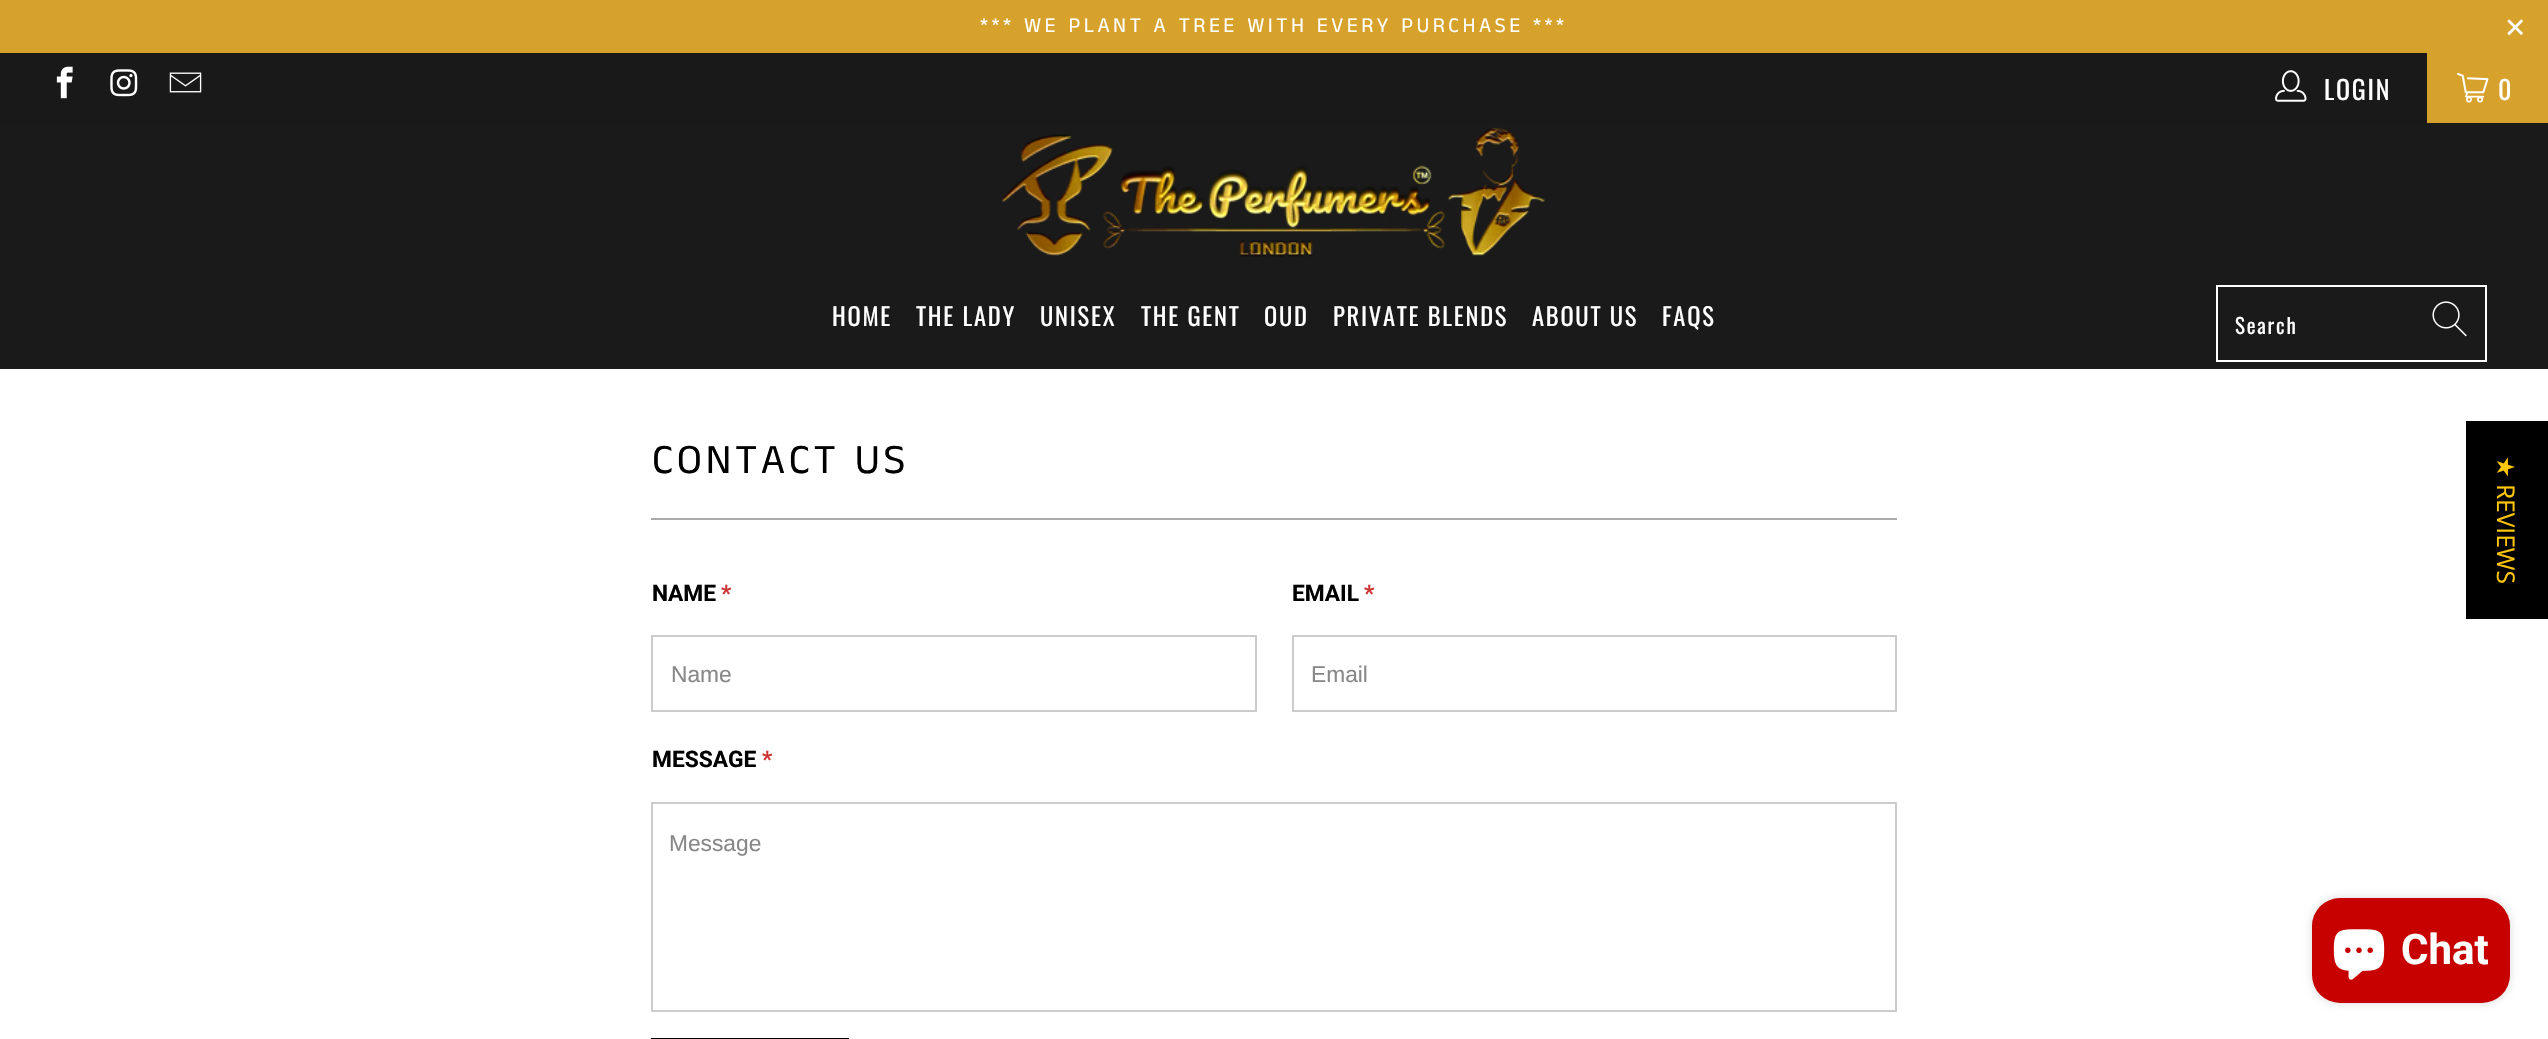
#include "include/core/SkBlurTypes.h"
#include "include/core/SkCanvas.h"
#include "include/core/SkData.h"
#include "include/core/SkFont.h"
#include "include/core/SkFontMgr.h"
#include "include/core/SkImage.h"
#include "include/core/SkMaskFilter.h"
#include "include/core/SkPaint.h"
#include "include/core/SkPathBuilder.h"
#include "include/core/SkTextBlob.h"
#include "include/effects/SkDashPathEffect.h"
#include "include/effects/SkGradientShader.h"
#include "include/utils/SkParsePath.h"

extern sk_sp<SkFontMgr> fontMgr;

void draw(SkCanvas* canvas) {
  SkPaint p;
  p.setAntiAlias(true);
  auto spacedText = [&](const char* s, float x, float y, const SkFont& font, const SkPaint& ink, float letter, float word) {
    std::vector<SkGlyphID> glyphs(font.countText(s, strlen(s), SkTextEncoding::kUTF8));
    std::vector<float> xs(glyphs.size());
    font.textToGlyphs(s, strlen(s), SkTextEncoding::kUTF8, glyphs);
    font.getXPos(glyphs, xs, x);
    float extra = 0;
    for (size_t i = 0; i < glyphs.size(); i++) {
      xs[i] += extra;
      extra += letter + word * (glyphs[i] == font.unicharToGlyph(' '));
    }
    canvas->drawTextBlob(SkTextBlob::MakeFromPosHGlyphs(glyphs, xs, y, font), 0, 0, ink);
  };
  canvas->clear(SK_ColorWHITE);
  p.setColor(SkColorSetRGB(215, 162, 44));
  canvas->drawRect(SkRect::MakeLTRB(0, 0, 2548, 53), p);
  p.setColor(SkColorSetRGB(25, 25, 25));
  canvas->drawRect(SkRect::MakeLTRB(0, 53, 2427, 123), p);
  canvas->drawImageRect(SkImages::DeferredFromEncodedData(SkData::MakeFromFileName("images/1.png")), SkRect::MakeLTRB(56, 66, 73, 99), SkSamplingOptions());
  canvas->drawImageRect(SkImages::DeferredFromEncodedData(SkData::MakeFromFileName("images/2.png")), SkRect::MakeLTRB(110, 69, 138, 97), SkSamplingOptions());
  canvas->drawImageRect(SkImages::DeferredFromEncodedData(SkData::MakeFromFileName("images/3.png")), SkRect::MakeLTRB(169, 72, 202, 93), SkSamplingOptions());
  canvas->drawImageRect(SkImages::DeferredFromEncodedData(SkData::MakeFromFileName("images/4.png")), SkRect::MakeLTRB(2275, 70, 2307, 102), SkSamplingOptions());
  p.setColor(SkColorSetRGB(215, 162, 44));
  canvas->drawRect(SkRect::MakeLTRB(2427, 53, 2548, 123), p);
  canvas->drawImageRect(SkImages::DeferredFromEncodedData(SkData::MakeFromFileName("images/5.png")), SkRect::MakeLTRB(2457, 72, 2489, 103), SkSamplingOptions());
  p.setColor(SkColorSetRGB(26, 26, 26));
  canvas->drawRect(SkRect::MakeLTRB(0, 123, 2548, 369), p);
  canvas->drawImageRect(SkImages::DeferredFromEncodedData(SkData::MakeFromFileName("images/6.png")), SkRect::MakeLTRB(1002, 127, 1545, 257), SkSamplingOptions());
  p.setStyle(SkPaint::kStroke_Style);
  p.setStrokeWidth(2);
  p.setColor(SK_ColorWHITE);
  canvas->drawRect(SkRect::MakeLTRB(2217, 286, 2486, 361), p);
  canvas->drawImageRect(SkImages::DeferredFromEncodedData(SkData::MakeFromFileName("images/7.png")), SkRect::MakeLTRB(2432, 301, 2467, 337), SkSamplingOptions());
  p.setStyle(SkPaint::kFill_Style);
  p.setColor(SkColorSetRGB(170, 170, 170));
  canvas->drawRect(SkRect::MakeLTRB(651, 518, 1897, 520), p);
  p.setStyle(SkPaint::kStroke_Style);
  p.setColor(SkColorSetRGB(204, 204, 204));
  canvas->drawRect(SkRect::MakeLTRB(652, 636, 1256, 711), p);
  canvas->drawRect(SkRect::MakeLTRB(1293, 636, 1896, 711), p);
  canvas->drawRect(SkRect::MakeLTRB(652, 803, 1896, 1011), p);
  p.setStyle(SkPaint::kFill_Style);
  p.setColor(SK_ColorBLACK);
  canvas->drawRect(SkRect::MakeLTRB(651, 1038, 849, 1039), p);
  canvas->drawRect(SkRect::MakeLTRB(2466, 421, 2548, 619), p);
  p.setColor(SkColorSetARGB(38, 0, 0, 0));
  p.setMaskFilter(SkMaskFilter::MakeBlur(kNormal_SkBlurStyle, 4.5f));
  canvas->drawRoundRect(SkRect::MakeLTRB(2312, 898, 2510, 1003), 28, 28, p);
  p.setMaskFilter(nullptr);
  p.setColor(SkColorSetRGB(199, 0, 0));
  canvas->drawRoundRect(SkRect::MakeLTRB(2312, 898, 2510, 1003), 28, 28, p);
  canvas->drawImageRect(SkImages::DeferredFromEncodedData(SkData::MakeFromFileName("images/8.png")), SkRect::MakeLTRB(2333, 929, 2385, 980), SkSamplingOptions());
  SkFont font1(fontMgr->matchFamilyStyle("Anek Tamil", SkFontStyle::Normal()), 21);
  font1.setSubpixel(true);
  p.setColor(SK_ColorWHITE);
  spacedText("*** WE PLANT A TREE WITH EVERY PURCHASE ***", 980, 32, font1, p, 3.5f, 0);
  SkFont font2(fontMgr->matchFamilyStyle("Liberation Sans", SkFontStyle::Normal()), 35);
  font2.setSubpixel(true);
  spacedText("×", 2505, 39, font2, p, 3.5f, 0);
  SkFont font3(fontMgr->matchFamilyStyle("Oswald", SkFontStyle::Normal()), 26);
  font3.setSubpixel(true);
  spacedText("LOGIN", 2324, 100, font3, p, 1.75f, 0);
  spacedText("0", 2498, 100, font3, p, 1.75f, 0);
  SkFont font4(fontMgr->matchFamilyStyle("Oswald", SkFontStyle::Normal()), 24.5f);
  font4.setSubpixel(true);
  spacedText("HOME", 832, 326, font4, p, 1.75f, 0);
  spacedText("THE LADY", 916, 326, font4, p, 1.75f, 0);
  spacedText("UNISEX", 1040, 326, font4, p, 1.75f, 0);
  spacedText("THE GENT", 1141, 326, font4, p, 1.75f, 0);
  spacedText("OUD", 1264, 326, font4, p, 1.75f, 0);
  spacedText("PRIVATE BLENDS", 1333, 326, font4, p, 1.75f, 0);
  spacedText("ABOUT US", 1532, 326, font4, p, 1.75f, 0);
  spacedText("FAQS", 1662, 326, font4, p, 1.75f, 0);
  SkFont font5(fontMgr->matchFamilyStyle("Oswald", SkFontStyle::Normal()), 21);
  font5.setSubpixel(true);
  spacedText("Search", 2235, 334, font5, p, 1.75f, 0);
  SkFont font6(fontMgr->matchFamilyStyle("Anek Tamil", SkFontStyle::Normal()), 42);
  font6.setSubpixel(true);
  p.setColor(SK_ColorBLACK);
  spacedText("CONTACT US", 652, 473, font6, p, 3.5f, 0);
  SkFont font7(fontMgr->matchFamilyStyle("Roboto", SkFontStyle::Bold()), 22.75f);
  font7.setSubpixel(true);
  canvas->drawString("NAME", 652, 601, font7, p);
  p.setColor(SkColorSetRGB(204, 51, 51));
  canvas->drawString("*", 721, 601, font7, p);
  SkFont font8(fontMgr->matchFamilyStyle("Liberation Sans", SkFontStyle::Normal()), 22.75f);
  font8.setSubpixel(true);
  p.setColor(SkColorSetRGB(136, 136, 136));
  canvas->drawString("Name", 671, 682, font8, p);
  p.setColor(SK_ColorBLACK);
  canvas->drawString("EMAIL", 1292, 601, font7, p);
  p.setColor(SkColorSetRGB(204, 51, 51));
  canvas->drawString("*", 1364, 601, font7, p);
  p.setColor(SkColorSetRGB(136, 136, 136));
  canvas->drawString("Email", 1311, 682, font8, p);
  p.setColor(SK_ColorBLACK);
  canvas->drawString("MESSAGE", 652, 767, font7, p);
  p.setColor(SkColorSetRGB(204, 51, 51));
  canvas->drawString("*", 762, 767, font7, p);
  p.setColor(SkColorSetRGB(136, 136, 136));
  canvas->drawString("Message", 669, 851, font8, p);
  SkFont font9(fontMgr->matchFamilyStyle("DejaVu Sans", SkFontStyle::Normal()), 24.5f);
  font9.setSubpixel(true);
  p.setColor(SkColorSetRGB(255, 198, 10));
  canvas->save();
  canvas->rotate(90, 2497, 456);
  canvas->drawString("★", 2497, 456, font9, p);
  canvas->restore();
  SkFont font10(fontMgr->matchFamilyStyle("Open Sans", SkFontStyle::Normal()), 24.5f);
  font10.setSubpixel(true);
  canvas->save();
  canvas->rotate(90, 2497, 484);
  canvas->drawString("REVIEWS", 2497, 484, font10, p);
  canvas->restore();
  SkFont font11(fontMgr->matchFamilyStyle("Roboto", SkFontStyle::Bold()), 42);
  font11.setSubpixel(true);
  p.setColor(SK_ColorWHITE);
  canvas->drawString("Chat", 2401, 964, font11, p);
}
